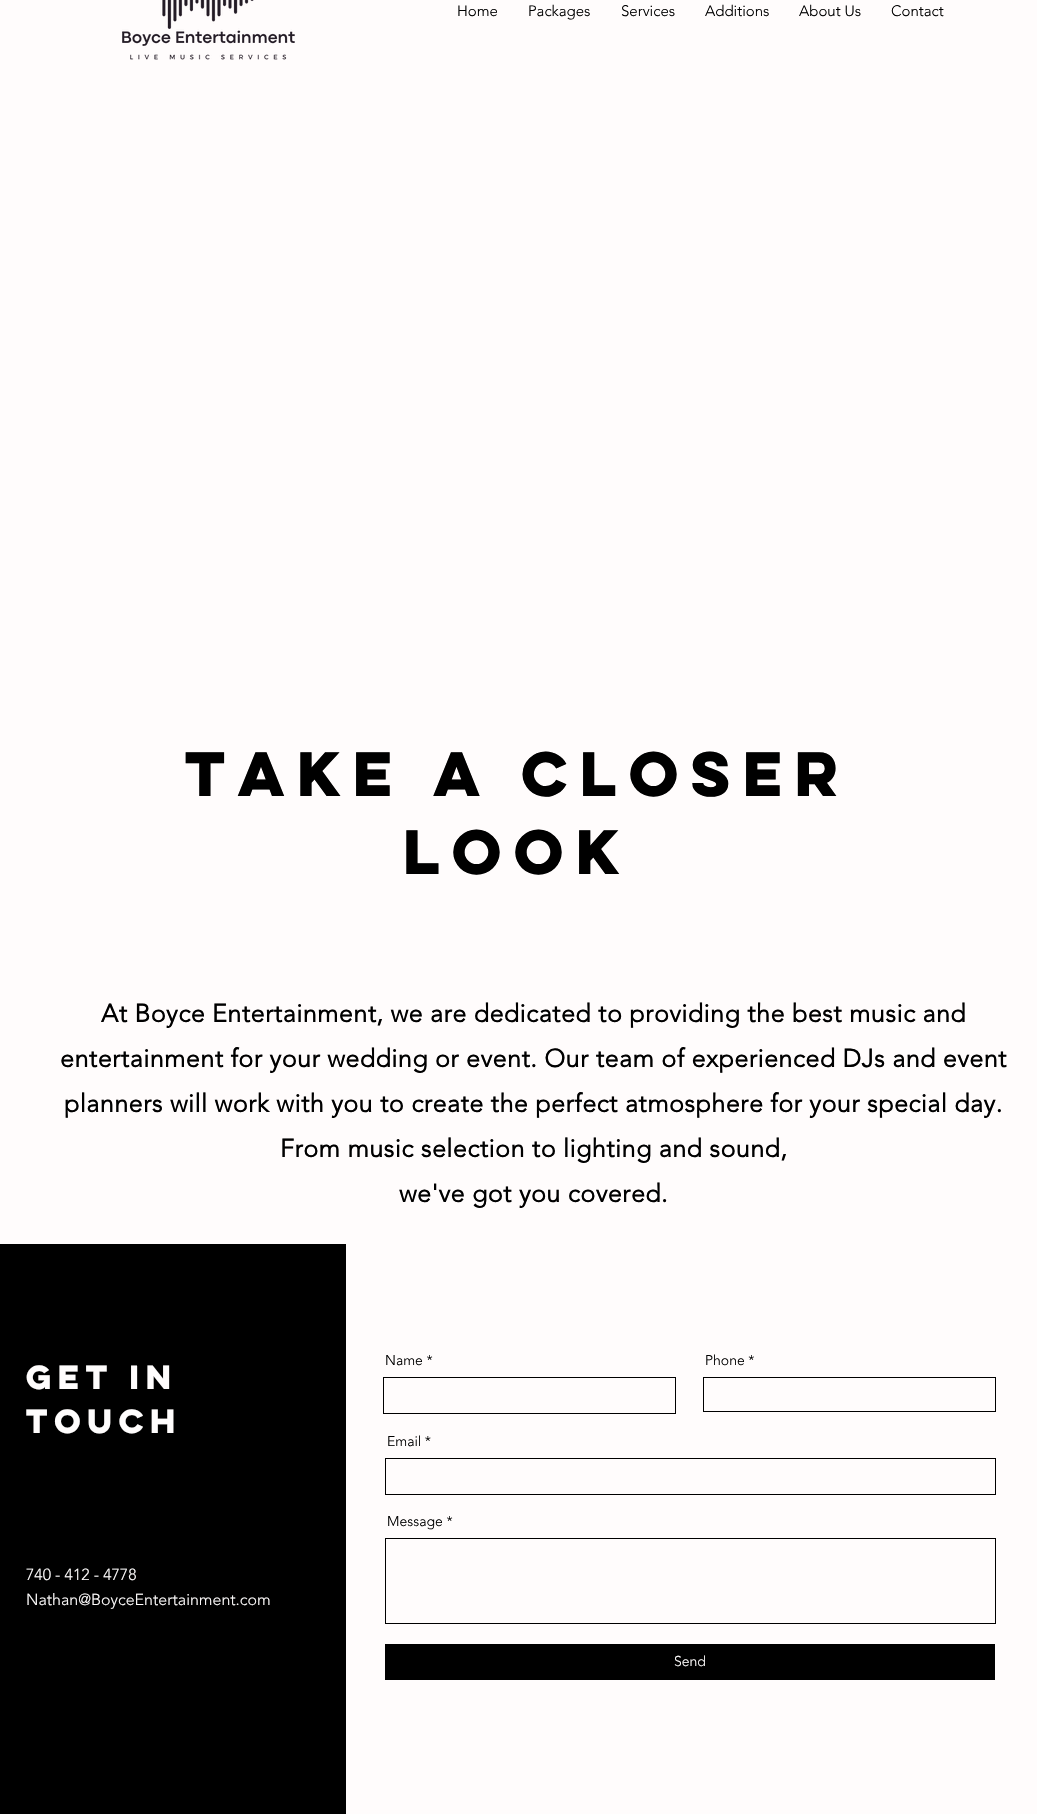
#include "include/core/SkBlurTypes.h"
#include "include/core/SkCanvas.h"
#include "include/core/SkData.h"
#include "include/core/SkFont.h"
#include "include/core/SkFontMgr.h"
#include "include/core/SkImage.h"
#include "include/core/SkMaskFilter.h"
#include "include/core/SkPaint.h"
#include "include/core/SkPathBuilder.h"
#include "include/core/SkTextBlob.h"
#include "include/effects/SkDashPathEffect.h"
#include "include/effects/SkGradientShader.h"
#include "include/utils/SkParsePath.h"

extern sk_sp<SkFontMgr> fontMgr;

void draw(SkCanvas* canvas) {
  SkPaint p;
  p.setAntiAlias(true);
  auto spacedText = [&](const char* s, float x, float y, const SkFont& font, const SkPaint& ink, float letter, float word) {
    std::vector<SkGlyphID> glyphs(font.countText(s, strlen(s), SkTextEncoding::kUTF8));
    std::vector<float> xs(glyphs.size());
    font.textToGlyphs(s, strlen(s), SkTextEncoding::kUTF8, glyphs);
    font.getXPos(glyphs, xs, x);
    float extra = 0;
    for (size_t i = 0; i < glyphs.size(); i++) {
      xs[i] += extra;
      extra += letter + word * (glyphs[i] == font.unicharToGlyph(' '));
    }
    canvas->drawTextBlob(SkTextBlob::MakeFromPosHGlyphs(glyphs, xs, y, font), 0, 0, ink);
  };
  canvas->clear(SkColorSetRGB(255, 252, 252));
  canvas->drawImageRect(SkImages::DeferredFromEncodedData(SkData::MakeFromFileName("images/1.png")), SkRect::MakeLTRB(122, 0, 295, 60), SkSamplingOptions());
  p.setColor(SK_ColorBLACK);
  canvas->drawRect(SkRect::MakeLTRB(0, 1244, 346, 1814), p);
  p.setStyle(SkPaint::kStroke_Style);
  p.setStrokeWidth(1);
  canvas->drawRect(SkRect::MakeLTRB(383.5f, 1377.5f, 675.5f, 1413.5f), p);
  canvas->drawRect(SkRect::MakeLTRB(703.5f, 1377.5f, 995.5f, 1411.5f), p);
  canvas->drawRect(SkRect::MakeLTRB(385.5f, 1458.5f, 995.5f, 1494.5f), p);
  canvas->drawRect(SkRect::MakeLTRB(385.5f, 1538.5f, 995.5f, 1623.5f), p);
  p.setStyle(SkPaint::kFill_Style);
  canvas->drawRect(SkRect::MakeLTRB(385, 1644, 995, 1680), p);
  SkFont font1(fontMgr->matchFamilyStyle("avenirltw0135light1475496", SkFontStyle(300, SkFontStyle::kNormal_Width, SkFontStyle::kUpright_Slant)), 15);
  font1.setSubpixel(true);
  canvas->drawString("Home", 457, 16, font1, p);
  canvas->drawString("Packages", 528, 16, font1, p);
  canvas->drawString("Services", 621, 16, font1, p);
  canvas->drawString("Additions", 705, 16, font1, p);
  canvas->drawString("About Us", 799, 16, font1, p);
  canvas->drawString("Contact", 891, 16, font1, p);
  SkFont font2(fontMgr->matchFamilyStyle("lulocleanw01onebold", SkFontStyle::Bold()), 56);
  font2.setSubpixel(true);
  canvas->drawString("Take a Closer", 185, 796, font2, p);
  canvas->drawString("Look", 403, 874, font2, p);
  SkFont font3(fontMgr->matchFamilyStyle("avenirltw0135light1475496", SkFontStyle::Bold()), 25);
  font3.setSubpixel(true);
  spacedText("At Boyce Entertainment, we are dedicated to providing the best music and", 101, 1022, font3, p, 0.5f, 0);
  spacedText("entertainment for your wedding or event. Our team of experienced DJs and event", 60, 1067, font3, p, 0.5f, 0);
  spacedText("planners will work with you to create the perfect atmosphere for your special day.", 64, 1112, font3, p, 0.5f, 0);
  spacedText("From music selection to lighting and sound,", 280, 1157, font3, p, 0.5f, 0);
  spacedText("we've got you covered.", 399, 1202, font3, p, 0.5f, 0);
  SkFont font4(fontMgr->matchFamilyStyle("lulocleanw01onebold", SkFontStyle::Bold()), 30);
  font4.setSubpixel(true);
  p.setColor(SkColorSetRGB(255, 253, 253));
  canvas->drawString("Get in", 26, 1389, font4, p);
  canvas->drawString("Touch", 26, 1433, font4, p);
  SkFont font5(fontMgr->matchFamilyStyle("avenirltw0135light1475496", SkFontStyle(300, SkFontStyle::kNormal_Width, SkFontStyle::kUpright_Slant)), 16);
  font5.setSubpixel(true);
  canvas->drawString("740 - 412 - 4778", 26, 1580, font5, p);
  canvas->drawString("Nathan@BoyceEntertainment.com", 26, 1605, font5, p);
  SkFont font6(fontMgr->matchFamilyStyle("avenirltw0135light1475496", SkFontStyle(300, SkFontStyle::kNormal_Width, SkFontStyle::kUpright_Slant)), 14);
  font6.setSubpixel(true);
  p.setColor(SK_ColorBLACK);
  canvas->drawString("Name *", 385, 1365, font6, p);
  canvas->drawString("Phone *", 705, 1365, font6, p);
  canvas->drawString("Email *", 387, 1446, font6, p);
  canvas->drawString("Message *", 387, 1526, font6, p);
  p.setColor(SkColorSetRGB(255, 253, 253));
  canvas->drawString("Send", 674, 1666, font6, p);
}
